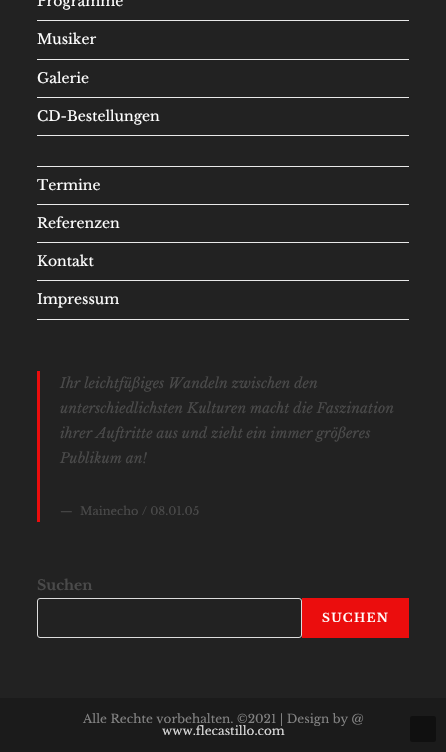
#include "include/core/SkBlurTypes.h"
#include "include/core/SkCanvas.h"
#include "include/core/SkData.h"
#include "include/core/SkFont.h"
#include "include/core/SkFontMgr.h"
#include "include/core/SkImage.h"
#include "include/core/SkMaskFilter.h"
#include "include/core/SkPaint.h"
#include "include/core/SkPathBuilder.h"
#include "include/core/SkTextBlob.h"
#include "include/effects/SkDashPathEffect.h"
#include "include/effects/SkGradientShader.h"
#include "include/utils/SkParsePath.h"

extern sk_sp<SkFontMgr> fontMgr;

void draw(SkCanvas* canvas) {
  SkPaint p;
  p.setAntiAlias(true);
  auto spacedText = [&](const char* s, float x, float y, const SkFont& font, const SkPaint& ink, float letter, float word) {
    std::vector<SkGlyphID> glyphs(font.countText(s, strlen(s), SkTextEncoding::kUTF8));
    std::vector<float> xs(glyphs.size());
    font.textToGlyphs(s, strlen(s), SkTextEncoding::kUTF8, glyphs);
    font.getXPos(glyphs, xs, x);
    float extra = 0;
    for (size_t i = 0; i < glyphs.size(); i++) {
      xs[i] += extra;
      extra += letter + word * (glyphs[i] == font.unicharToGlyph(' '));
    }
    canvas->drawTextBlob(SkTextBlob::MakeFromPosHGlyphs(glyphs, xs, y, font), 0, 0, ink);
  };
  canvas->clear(SkColorSetRGB(34, 34, 34));
  p.setColor(SkColorSetRGB(233, 233, 233));
  canvas->drawRect(SkRect::MakeLTRB(37, 20, 409, 21), p);
  canvas->drawRect(SkRect::MakeLTRB(37, 59, 409, 60), p);
  canvas->drawRect(SkRect::MakeLTRB(37, 97, 409, 98), p);
  canvas->drawRect(SkRect::MakeLTRB(37, 135, 409, 136), p);
  canvas->drawRect(SkRect::MakeLTRB(37, 166, 409, 167), p);
  canvas->drawRect(SkRect::MakeLTRB(37, 204, 409, 205), p);
  canvas->drawRect(SkRect::MakeLTRB(37, 242, 409, 243), p);
  canvas->drawRect(SkRect::MakeLTRB(37, 280, 409, 281), p);
  canvas->drawRect(SkRect::MakeLTRB(37, 319, 409, 320), p);
  p.setColor(SkColorSetRGB(235, 13, 13));
  canvas->drawRect(SkRect::MakeLTRB(37, 371, 40, 522), p);
  p.setStyle(SkPaint::kStroke_Style);
  p.setStrokeWidth(1);
  p.setColor(SkColorSetRGB(221, 221, 221));
  canvas->drawRoundRect(SkRect::MakeLTRB(37.5f, 598.5f, 301.5f, 637.5f), 2.5f, 2.5f, p);
  p.setStyle(SkPaint::kFill_Style);
  p.setColor(SkColorSetRGB(235, 13, 13));
  canvas->drawRect(SkRect::MakeLTRB(302, 598, 409, 638), p);
  p.setColor(SkColorSetRGB(27, 27, 27));
  canvas->drawRect(SkRect::MakeLTRB(0, 698, 446, 752), p);
  p.setColor(SkColorSetRGB(16, 16, 16));
  canvas->drawRoundRect(SkRect::MakeLTRB(410, 716, 436, 742), 2, 2, p);
  SkFont font1(fontMgr->matchFamilyStyle("Libre Baskerville", SkFontStyle::Normal()), 14);
  font1.setSubpixel(true);
  p.setColor(SK_ColorWHITE);
  canvas->drawString("Programme", 37, 6, font1, p);
  canvas->drawString("Musiker", 37, 44, font1, p);
  canvas->drawString("Galerie", 37, 83, font1, p);
  canvas->drawString("CD-Bestellungen", 37, 121, font1, p);
  canvas->drawString("Termine", 37, 190, font1, p);
  canvas->drawString("Referenzen", 37, 228, font1, p);
  canvas->drawString("Kontakt", 37, 266, font1, p);
  canvas->drawString("Impressum", 37, 304, font1, p);
  SkFont font2(fontMgr->matchFamilyStyle("Libre Baskerville", SkFontStyle::Italic()), 14);
  font2.setSubpixel(true);
  p.setColor(SkColorSetRGB(74, 74, 74));
  canvas->drawString("Ihr leichtfüßiges Wandeln zwischen den", 60, 388, font2, p);
  canvas->drawString("unterschiedlichsten Kulturen macht die Faszination", 60, 413, font2, p);
  canvas->drawString("ihrer Auftritte aus und zieht ein immer größeres", 60, 438, font2, p);
  canvas->drawString("Publikum an!", 60, 463, font2, p);
  SkFont font3(fontMgr->matchFamilyStyle("Libre Baskerville", SkFontStyle::Normal()), 11.4f);
  font3.setSubpixel(true);
  canvas->drawString("—", 60, 515, font3, p);
  canvas->drawString("Mainecho / 08.01.05", 80, 515, font3, p);
  SkFont font4(fontMgr->matchFamilyStyle("Libre Baskerville", SkFontStyle::Bold()), 14);
  font4.setSubpixel(true);
  canvas->drawString("Suchen", 37, 590, font4, p);
  SkFont font5(fontMgr->matchFamilyStyle("Libre Baskerville", SkFontStyle(600, SkFontStyle::kNormal_Width, SkFontStyle::kUpright_Slant)), 12);
  font5.setSubpixel(true);
  p.setColor(SK_ColorWHITE);
  spacedText("SUCHEN", 322, 622, font5, p, 1.25f, 0);
  SkFont font6(fontMgr->matchFamilyStyle("Libre Baskerville", SkFontStyle::Normal()), 12);
  font6.setSubpixel(true);
  p.setColor(SkColorSetRGB(130, 130, 130));
  canvas->drawString("Alle Rechte vorbehalten. ©2021 | Design by @", 83, 723, font6, p);
  p.setColor(SkColorSetRGB(219, 219, 219));
  canvas->drawString("www.flecastillo.com", 162, 735, font6, p);
}
